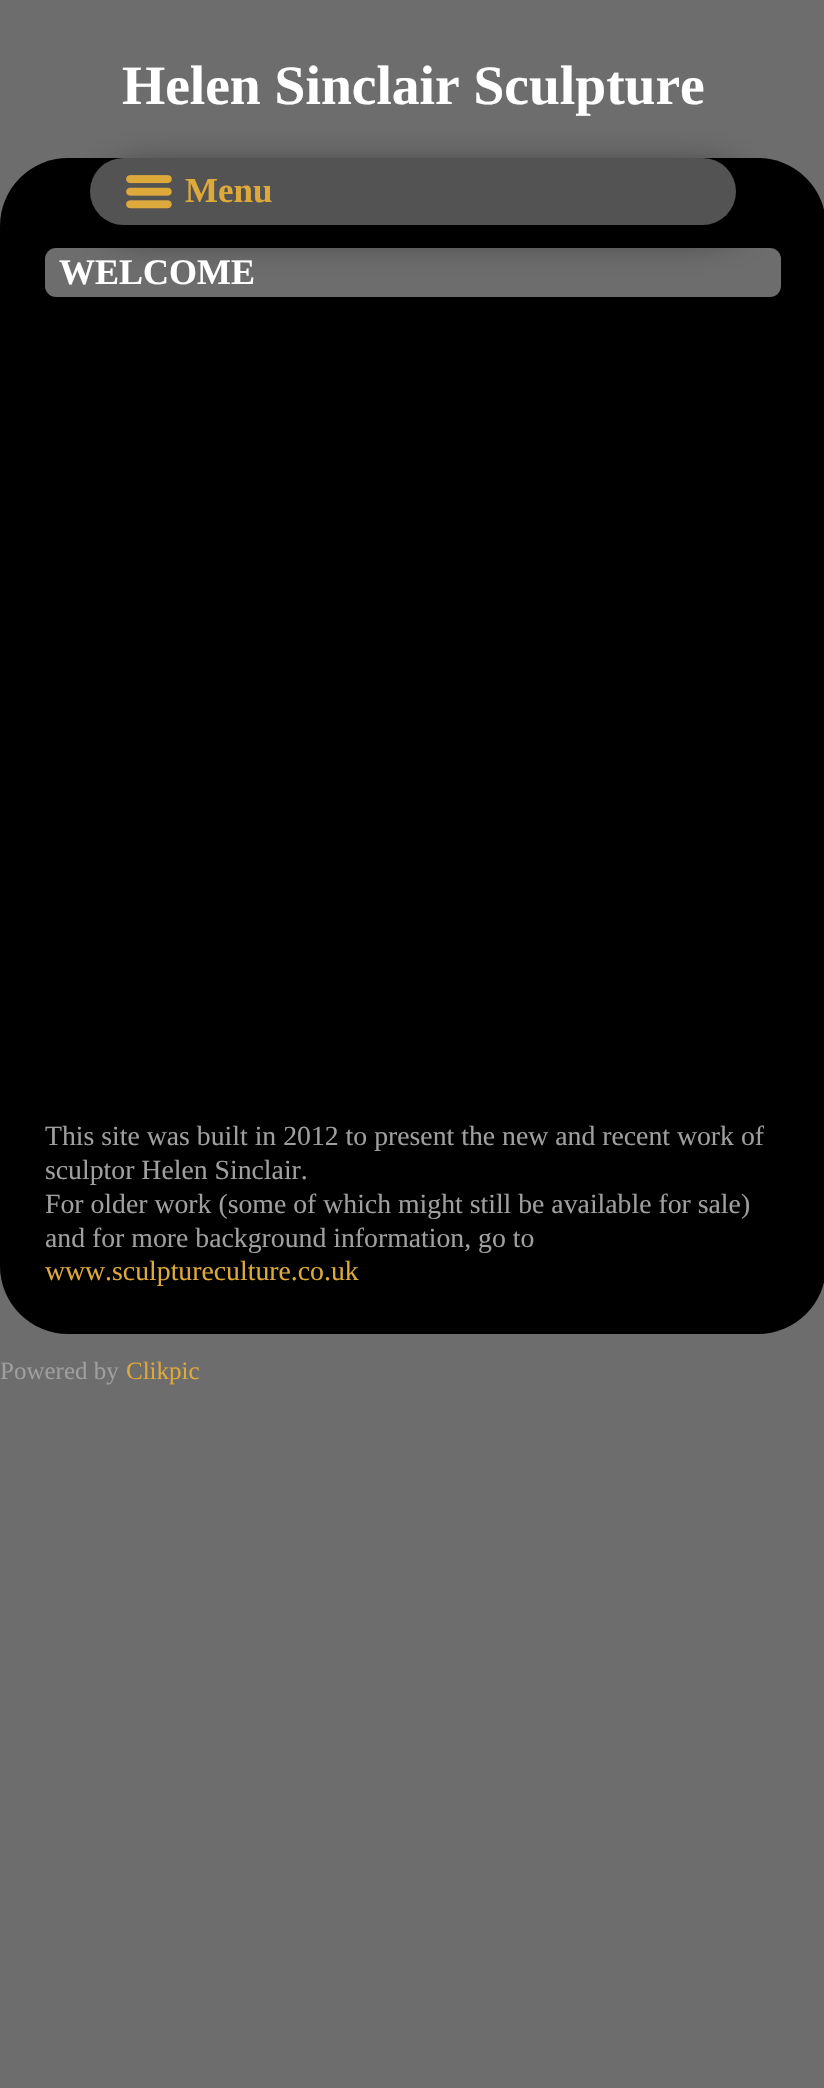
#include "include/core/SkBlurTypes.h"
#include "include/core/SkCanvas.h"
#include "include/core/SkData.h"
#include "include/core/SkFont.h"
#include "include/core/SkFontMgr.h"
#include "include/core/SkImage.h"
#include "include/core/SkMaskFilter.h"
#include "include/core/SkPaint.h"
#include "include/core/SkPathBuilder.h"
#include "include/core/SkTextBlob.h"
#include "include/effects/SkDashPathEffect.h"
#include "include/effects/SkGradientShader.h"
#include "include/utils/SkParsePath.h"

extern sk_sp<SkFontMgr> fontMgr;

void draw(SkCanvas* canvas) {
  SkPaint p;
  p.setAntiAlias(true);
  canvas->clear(SkColorSetRGB(109, 109, 109));
  p.setColor(SK_ColorBLACK);
  canvas->drawRoundRect(SkRect::MakeLTRB(0, 158, 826, 1334), 68, 68, p);
  p.setColor(SkColorSetRGB(109, 109, 109));
  canvas->drawRoundRect(SkRect::MakeLTRB(45, 248, 781, 297), 11, 11, p);
  p.setColor(SK_ColorBLACK);
  p.setMaskFilter(SkMaskFilter::MakeBlur(kNormal_SkBlurStyle, 22.5f));
  canvas->drawRoundRect(SkRect::MakeLTRB(113, 180, 736, 225), 22.5f, 22.5f, p);
  p.setMaskFilter(nullptr);
  p.setColor(SkColorSetRGB(83, 83, 83));
  canvas->drawRoundRect(SkRect::MakeLTRB(90, 158, 736, 225), 33.5f, 33.5f, p);
  canvas->drawImageRect(SkImages::DeferredFromEncodedData(SkData::MakeFromFileName("images/1.png")), SkRect::MakeLTRB(126, 175, 172, 209), SkSamplingOptions());
  SkFont font1(fontMgr->matchFamilyStyle("Liberation Serif", SkFontStyle::Bold()), 55.5f);
  font1.setSubpixel(true);
  p.setColor(SK_ColorWHITE);
  canvas->drawString("Helen Sinclair Sculpture", 122, 104, font1, p);
  SkFont font2(fontMgr->matchFamilyStyle("Liberation Serif", SkFontStyle::Bold()), 35);
  font2.setSubpixel(true);
  p.setColor(SkColorSetRGB(222, 169, 59));
  canvas->drawString("Menu", 185, 202, font2, p);
  SkFont font3(fontMgr->matchFamilyStyle("Liberation Serif", SkFontStyle::Bold()), 36);
  font3.setSubpixel(true);
  p.setColor(SK_ColorWHITE);
  canvas->drawString("WELCOME", 59, 284, font3, p);
  SkFont font4(fontMgr->matchFamilyStyle("Liberation Serif", SkFontStyle::Normal()), 27.75f);
  font4.setSubpixel(true);
  p.setColor(SkColorSetRGB(159, 159, 159));
  canvas->drawString("This site was built in 2012 to present the new and recent work of", 45, 1145, font4, p);
  canvas->drawString("sculptor Helen Sinclair.", 45, 1179, font4, p);
  canvas->drawString("For older work (some of which might still be available for sale)", 45, 1213, font4, p);
  canvas->drawString("and for more background information, go to", 45, 1247, font4, p);
  p.setColor(SkColorSetRGB(222, 169, 59));
  canvas->drawString("www.sculptureculture.co.uk", 45, 1280, font4, p);
  SkFont font5(fontMgr->matchFamilyStyle("Liberation Serif", SkFontStyle::Normal()), 25);
  font5.setSubpixel(true);
  p.setColor(SkColorSetRGB(159, 159, 159));
  canvas->drawString("Powered by", 0, 1379, font5, p);
  p.setColor(SkColorSetRGB(222, 169, 59));
  canvas->drawString("Clikpic", 126, 1379, font5, p);
}
